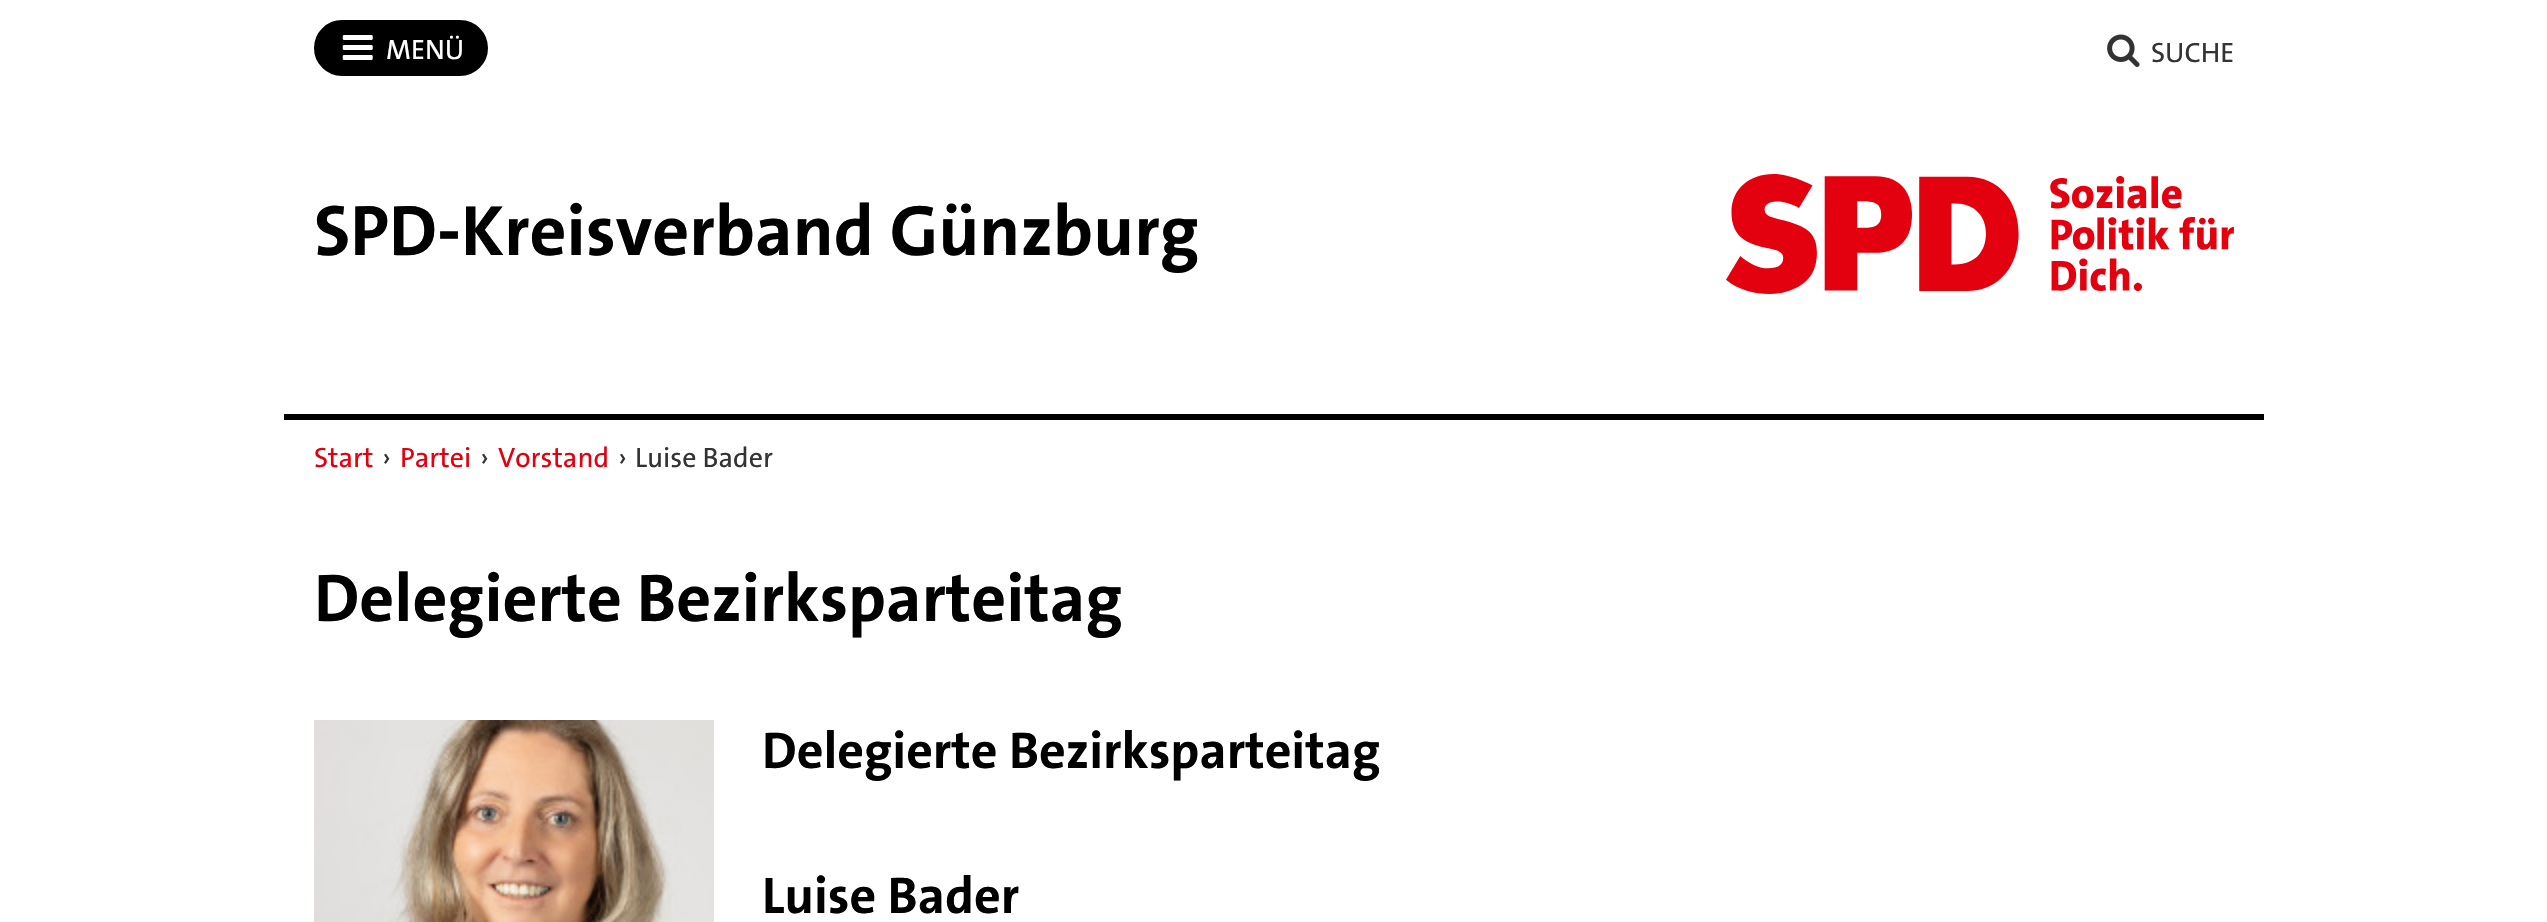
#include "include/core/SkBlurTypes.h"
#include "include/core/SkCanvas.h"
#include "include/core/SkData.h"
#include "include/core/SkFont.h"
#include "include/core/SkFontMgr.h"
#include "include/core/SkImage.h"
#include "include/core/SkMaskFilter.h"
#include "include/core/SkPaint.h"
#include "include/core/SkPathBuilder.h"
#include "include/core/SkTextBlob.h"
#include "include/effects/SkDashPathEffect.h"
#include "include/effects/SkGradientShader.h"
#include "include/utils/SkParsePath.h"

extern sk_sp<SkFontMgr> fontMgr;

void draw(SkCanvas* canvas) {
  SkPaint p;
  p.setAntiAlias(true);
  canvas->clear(SK_ColorWHITE);
  p.setColor(SK_ColorBLACK);
  canvas->drawRoundRect(SkRect::MakeLTRB(316, 22, 486, 74), 26, 26, p);
  p.setStyle(SkPaint::kStroke_Style);
  p.setStrokeWidth(4);
  canvas->drawRoundRect(SkRect::MakeLTRB(316, 22, 486, 74), 26, 26, p);
  canvas->drawImageRect(SkImages::DeferredFromEncodedData(SkData::MakeFromFileName("images/1.png")), SkRect::MakeLTRB(342, 35, 373, 60), SkSamplingOptions());
  canvas->drawImageRect(SkImages::DeferredFromEncodedData(SkData::MakeFromFileName("images/2.png")), SkRect::MakeLTRB(2107, 34, 2140, 67), SkSamplingOptions());
  canvas->drawImageRect(SkImages::DeferredFromEncodedData(SkData::MakeFromFileName("images/3.png")), SkRect::MakeLTRB(1726, 174, 2234, 294), SkSamplingOptions());
  p.setStyle(SkPaint::kFill_Style);
  canvas->drawRect(SkRect::MakeLTRB(284, 414, 2264, 420), p);
  canvas->drawImageRect(SkImages::DeferredFromEncodedData(SkData::MakeFromFileName("images/4.png")), SkRect::MakeLTRB(314, 720, 714, 922), SkSamplingOptions());
  SkFont font1(fontMgr->matchFamilyStyle("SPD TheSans", SkFontStyle(500, SkFontStyle::kNormal_Width, SkFontStyle::kUpright_Slant)), 28);
  font1.setSubpixel(true);
  p.setColor(SK_ColorWHITE);
  canvas->drawString("MENÜ", 386, 59, font1, p);
  p.setColor(SkColorSetRGB(51, 51, 51));
  canvas->drawString("SUCHE", 2151, 62, font1, p);
  SkFont font2(fontMgr->matchFamilyStyle("SPD TheSans", SkFontStyle::Bold()), 72);
  font2.setSubpixel(true);
  p.setColor(SK_ColorBLACK);
  canvas->drawString("SPD-Kreisverband Günzburg", 314, 255, font2, p);
  p.setColor(SkColorSetRGB(227, 0, 15));
  canvas->drawString("Start", 314, 467, font1, p);
  p.setColor(SkColorSetRGB(51, 51, 51));
  canvas->drawString("›", 382, 467, font1, p);
  p.setColor(SkColorSetRGB(227, 0, 15));
  canvas->drawString("Partei", 400, 467, font1, p);
  p.setColor(SkColorSetRGB(51, 51, 51));
  canvas->drawString("›", 480, 467, font1, p);
  p.setColor(SkColorSetRGB(227, 0, 15));
  canvas->drawString("Vorstand", 498, 467, font1, p);
  p.setColor(SkColorSetRGB(51, 51, 51));
  canvas->drawString("›", 618, 467, font1, p);
  canvas->drawString("Luise Bader", 635, 467, font1, p);
  SkFont font3(fontMgr->matchFamilyStyle("SPD TheSans", SkFontStyle::Bold()), 68);
  font3.setSubpixel(true);
  p.setColor(SK_ColorBLACK);
  canvas->drawString("Delegierte Bezirksparteitag", 314, 621, font3, p);
  SkFont font4(fontMgr->matchFamilyStyle("SPD TheSans", SkFontStyle::Bold()), 52);
  font4.setSubpixel(true);
  canvas->drawString("Delegierte Bezirksparteitag", 762, 768, font4, p);
  canvas->drawString("Luise Bader", 762, 913, font4, p);
}
